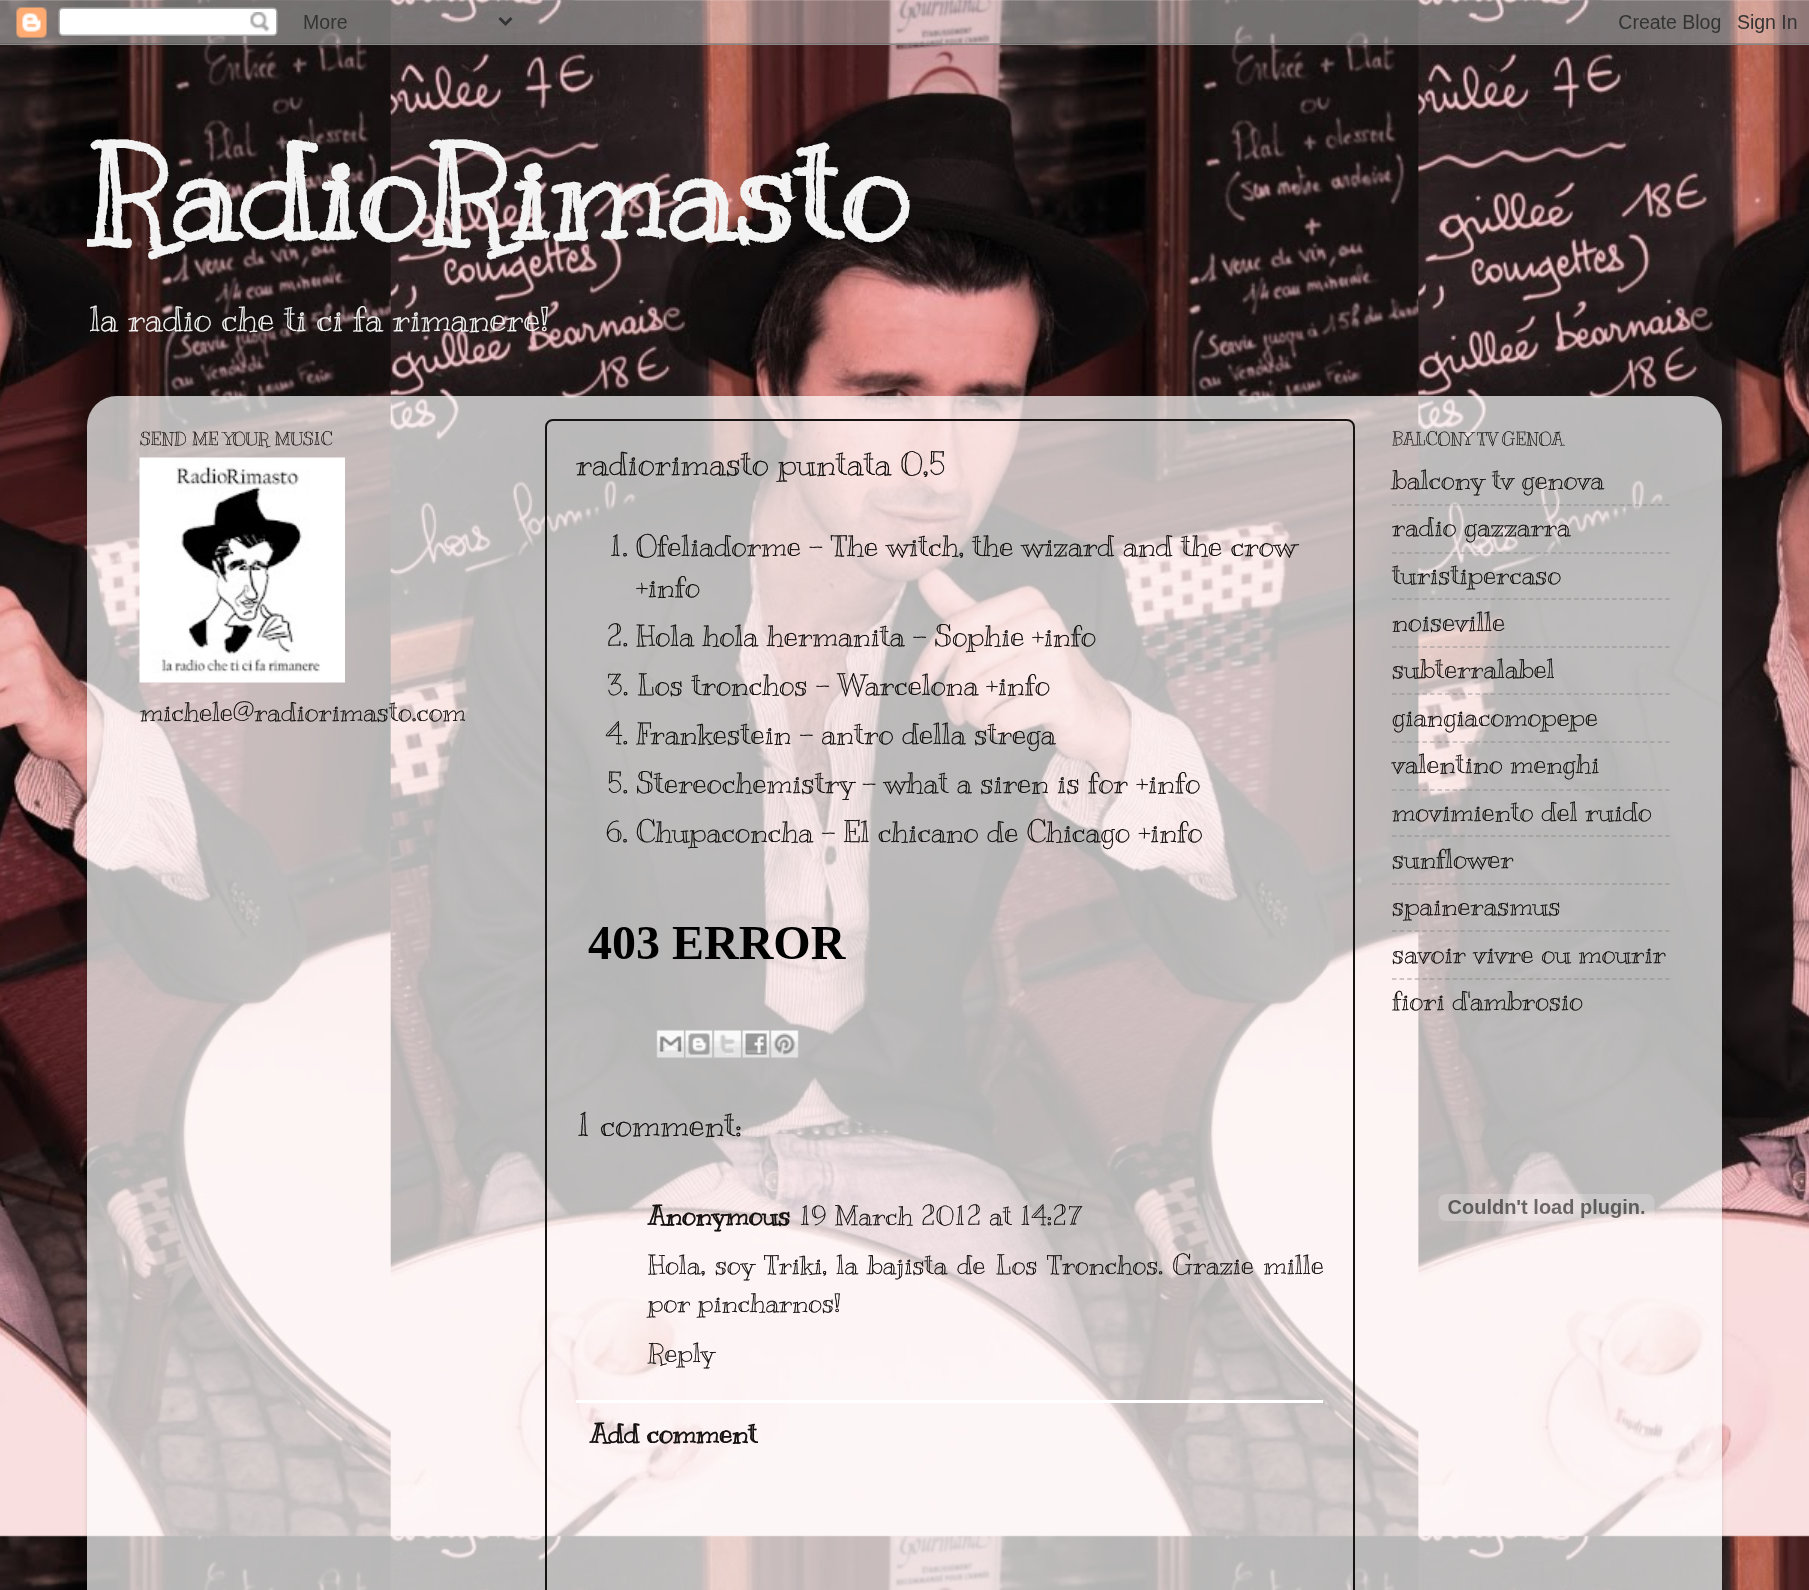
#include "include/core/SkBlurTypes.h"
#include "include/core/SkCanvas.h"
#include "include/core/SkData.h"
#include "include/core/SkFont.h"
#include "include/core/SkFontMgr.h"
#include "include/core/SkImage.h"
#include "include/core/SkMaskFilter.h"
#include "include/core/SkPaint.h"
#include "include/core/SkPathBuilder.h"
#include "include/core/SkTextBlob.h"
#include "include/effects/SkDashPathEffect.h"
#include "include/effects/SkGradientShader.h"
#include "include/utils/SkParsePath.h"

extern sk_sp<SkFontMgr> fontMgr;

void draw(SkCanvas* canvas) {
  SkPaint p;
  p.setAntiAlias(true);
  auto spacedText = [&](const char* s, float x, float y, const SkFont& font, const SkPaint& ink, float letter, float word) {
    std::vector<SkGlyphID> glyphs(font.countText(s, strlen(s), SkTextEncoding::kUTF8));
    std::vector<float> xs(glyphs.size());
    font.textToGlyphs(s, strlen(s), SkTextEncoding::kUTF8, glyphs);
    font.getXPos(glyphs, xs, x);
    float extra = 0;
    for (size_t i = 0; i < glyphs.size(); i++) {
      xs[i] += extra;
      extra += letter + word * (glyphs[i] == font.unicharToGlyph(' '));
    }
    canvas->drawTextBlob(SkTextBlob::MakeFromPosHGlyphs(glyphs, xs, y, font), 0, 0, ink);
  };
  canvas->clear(SK_ColorWHITE);
  canvas->drawImageRect(SkImages::DeferredFromEncodedData(SkData::MakeFromFileName("images/1.png")), SkRect::MakeLTRB(0, 0, 1809, 1590), SkSamplingOptions());
  canvas->drawImageRect(SkImages::DeferredFromEncodedData(SkData::MakeFromFileName("images/2.png")), SkRect::MakeLTRB(0, 0, 1809, 45), SkSamplingOptions());
  canvas->save();
  canvas->clipPath(SkPathBuilder(SkPathFillType::kEvenOdd).moveTo(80, 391).lineTo(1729, 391).lineTo(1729, 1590).lineTo(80, 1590).close().moveTo(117, 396).lineTo(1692, 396).cubicTo(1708.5f, 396, 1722, 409.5f, 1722, 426).lineTo(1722, 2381).lineTo(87, 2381).lineTo(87, 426).cubicTo(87, 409.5f, 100.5f, 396, 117, 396).close().detach(), true);
  p.setColor(SkColorSetARGB(38, 0, 0, 0));
  p.setMaskFilter(SkMaskFilter::MakeBlur(kNormal_SkBlurStyle, 2));
  canvas->drawRoundRect(SkRect::MakeLTRB(87, 398, 1722, 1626), 30, 30, p);
  p.setMaskFilter(nullptr);
  canvas->restore();
  canvas->drawImageRect(SkImages::DeferredFromEncodedData(SkData::MakeFromFileName("images/3.png")), SkRect::MakeLTRB(87, 396, 1722, 1590), SkSamplingOptions());
  canvas->drawImageRect(SkImages::DeferredFromEncodedData(SkData::MakeFromFileName("images/4.png")), SkRect::MakeLTRB(139, 457, 345, 683), SkSamplingOptions());
  p.setStyle(SkPaint::kStroke_Style);
  p.setStrokeWidth(2);
  p.setColor(SkColorSetRGB(23, 18, 18));
  canvas->drawRoundRect(SkRect::MakeLTRB(546, 420, 1354, 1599), 7, 7, p);
  canvas->drawImageRect(SkImages::DeferredFromEncodedData(SkData::MakeFromFileName("images/5.png")), SkRect::MakeLTRB(588, 927, 846, 959), SkSamplingOptions());
  canvas->drawImageRect(SkImages::DeferredFromEncodedData(SkData::MakeFromFileName("images/6.png")), SkRect::MakeLTRB(656, 1029, 684, 1058), SkSamplingOptions());
  canvas->drawImageRect(SkImages::DeferredFromEncodedData(SkData::MakeFromFileName("images/7.png")), SkRect::MakeLTRB(684, 1029, 713, 1059), SkSamplingOptions());
  canvas->drawImageRect(SkImages::DeferredFromEncodedData(SkData::MakeFromFileName("images/8.png")), SkRect::MakeLTRB(712, 1030, 741, 1058), SkSamplingOptions());
  canvas->drawImageRect(SkImages::DeferredFromEncodedData(SkData::MakeFromFileName("images/9.png")), SkRect::MakeLTRB(741, 1030, 770, 1058), SkSamplingOptions());
  canvas->drawImageRect(SkImages::DeferredFromEncodedData(SkData::MakeFromFileName("images/10.png")), SkRect::MakeLTRB(769, 1030, 799, 1058), SkSamplingOptions());
  p.setStyle(SkPaint::kFill_Style);
  p.setColor(SK_ColorWHITE);
  canvas->drawRect(SkRect::MakeLTRB(576, 1400, 1323, 1403), p);
  p.setStyle(SkPaint::kStroke_Style);
  p.setStrokeWidth(1.5f);
  p.setColor(SkColorSetARGB(128, 128, 128, 128));
  p.setPathEffect(SkDashPathEffect::Make({{4.5f, 3.09f}}, 0));
  canvas->drawPath(SkPathBuilder().moveTo(1392, 505).lineTo(1669.5f, 505).detach(), p);
  p.setPathEffect(nullptr);
  p.setPathEffect(SkDashPathEffect::Make({{4.5f, 3.09f}}, 0));
  canvas->drawPath(SkPathBuilder().moveTo(1392, 553).lineTo(1669.5f, 553).detach(), p);
  p.setPathEffect(nullptr);
  p.setPathEffect(SkDashPathEffect::Make({{4.5f, 3.09f}}, 0));
  canvas->drawPath(SkPathBuilder().moveTo(1392, 599).lineTo(1669.5f, 599).detach(), p);
  p.setPathEffect(nullptr);
  p.setPathEffect(SkDashPathEffect::Make({{4.5f, 3.09f}}, 0));
  canvas->drawPath(SkPathBuilder().moveTo(1392, 647).lineTo(1669.5f, 647).detach(), p);
  p.setPathEffect(nullptr);
  p.setPathEffect(SkDashPathEffect::Make({{4.5f, 3.09f}}, 0));
  canvas->drawPath(SkPathBuilder().moveTo(1392, 694).lineTo(1669.5f, 694).detach(), p);
  p.setPathEffect(nullptr);
  p.setPathEffect(SkDashPathEffect::Make({{4.5f, 3.09f}}, 0));
  canvas->drawPath(SkPathBuilder().moveTo(1392, 742).lineTo(1669.5f, 742).detach(), p);
  p.setPathEffect(nullptr);
  p.setPathEffect(SkDashPathEffect::Make({{4.5f, 3.09f}}, 0));
  canvas->drawPath(SkPathBuilder().moveTo(1392, 790).lineTo(1669.5f, 790).detach(), p);
  p.setPathEffect(nullptr);
  p.setPathEffect(SkDashPathEffect::Make({{4.5f, 3.09f}}, 0));
  canvas->drawPath(SkPathBuilder().moveTo(1392, 836).lineTo(1669.5f, 836).detach(), p);
  p.setPathEffect(nullptr);
  p.setPathEffect(SkDashPathEffect::Make({{4.5f, 3.09f}}, 0));
  canvas->drawPath(SkPathBuilder().moveTo(1392, 884).lineTo(1669.5f, 884).detach(), p);
  p.setPathEffect(nullptr);
  p.setPathEffect(SkDashPathEffect::Make({{4.5f, 3.09f}}, 0));
  canvas->drawPath(SkPathBuilder().moveTo(1392, 931).lineTo(1669.5f, 931).detach(), p);
  p.setPathEffect(nullptr);
  p.setPathEffect(SkDashPathEffect::Make({{4.5f, 3.09f}}, 0));
  canvas->drawPath(SkPathBuilder().moveTo(1392, 979).lineTo(1669.5f, 979).detach(), p);
  p.setPathEffect(nullptr);
  canvas->drawImageRect(SkImages::DeferredFromEncodedData(SkData::MakeFromFileName("images/11.png")), SkRect::MakeLTRB(1438, 1194, 1655, 1221), SkSamplingOptions());
  canvas->save();
  canvas->clipRect(SkRect::MakeLTRB(87, 75, 1722, 383));
  SkFont font1(fontMgr->matchFamilyStyle("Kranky", SkFontStyle::Bold()), 135);
  font1.setSubpixel(true);
  p.setStyle(SkPaint::kFill_Style);
  p.setColor(SkColorSetRGB(243, 243, 243));
  canvas->drawString("RadioRimasto", 87, 239, font1, p);
  canvas->restore();
  SkFont font2(fontMgr->matchFamilyStyle("Kranky", SkFontStyle::Normal()), 35.1f);
  font2.setSubpixel(true);
  canvas->drawString("la radio che ti ci fa rimanere!", 90, 331, font2, p);
  SkFont font3(fontMgr->matchFamilyStyle("Kranky", SkFontStyle::Normal()), 18);
  font3.setSubpixel(true);
  p.setColor(SkColorSetRGB(23, 18, 18));
  canvas->drawString("SEND ME YOUR MUSIC", 140, 445, font3, p);
  SkFont font4(fontMgr->matchFamilyStyle("Kranky", SkFontStyle::Normal()), 27);
  font4.setSubpixel(true);
  canvas->drawString("michele@radiorimasto.com", 140, 721, font4, p);
  SkFont font5(fontMgr->matchFamilyStyle("Kranky", SkFontStyle::Normal()), 33);
  font5.setSubpixel(true);
  canvas->drawString("radiorimasto puntata 0,5", 576, 475, font5, p);
  SkFont font6(fontMgr->matchFamilyStyle("Kranky", SkFontStyle::Normal()), 29.7f);
  font6.setSubpixel(true);
  canvas->drawString("1. Ofeliadorme - The witch, the wizard and the crow", 609, 556, font6, p);
  canvas->drawString("+info", 636, 597, font6, p);
  canvas->drawString("2. Hola hola hermanita - Sophie", 606, 646, font6, p);
  canvas->drawString("+info", 1032, 646, font6, p);
  canvas->drawString("3. Los tronchos - Warcelona", 606, 695, font6, p);
  canvas->drawString("+info", 986, 695, font6, p);
  canvas->drawString("4. Frankestein - antro della strega", 606, 744, font6, p);
  canvas->drawString("5. Stereochemistry - what a siren is for +info", 607, 793, font6, p);
  canvas->drawString("6. Chupaconcha - El chicano de Chicago +info", 606, 842, font6, p);
  canvas->drawString("1 comment:", 576, 1136, font5, p);
  SkFont font7(fontMgr->matchFamilyStyle("Kranky", SkFontStyle::Bold()), 27);
  font7.setSubpixel(true);
  canvas->drawString("Anonymous", 648, 1225, font7, p);
  canvas->drawString("19 March 2012 at 14:27", 799, 1225, font4, p);
  spacedText("Hola, soy Triki, la bajista de Los Tronchos. Grazie mille", 648, 1274, font4, p, 0, 2);
  canvas->drawString("por pincharnos!", 648, 1312, font4, p);
  canvas->drawString("Reply", 648, 1362, font4, p);
  canvas->drawString("Add comment", 590, 1443, font7, p);
  canvas->drawString("BALCONY TV GENOA", 1392, 445, font3, p);
  canvas->drawString("balcony tv genova", 1392, 489, font4, p);
  canvas->drawString("radio gazzarra", 1392, 536, font4, p);
  canvas->drawString("turistipercaso", 1392, 584, font4, p);
  canvas->drawString("noiseville", 1392, 631, font4, p);
  canvas->drawString("subterralabel", 1392, 678, font4, p);
  canvas->drawString("giangiacomopepe", 1392, 726, font4, p);
  canvas->drawString("valentino menghi", 1392, 773, font4, p);
  canvas->drawString("movimiento del ruido", 1392, 821, font4, p);
  canvas->drawString("sunflower", 1392, 868, font4, p);
  canvas->drawString("spainerasmus", 1392, 915, font4, p);
  canvas->drawString("savoir vivre ou mourir", 1392, 963, font4, p);
  canvas->drawString("fiori d'ambrosio", 1392, 1010, font4, p);
}
